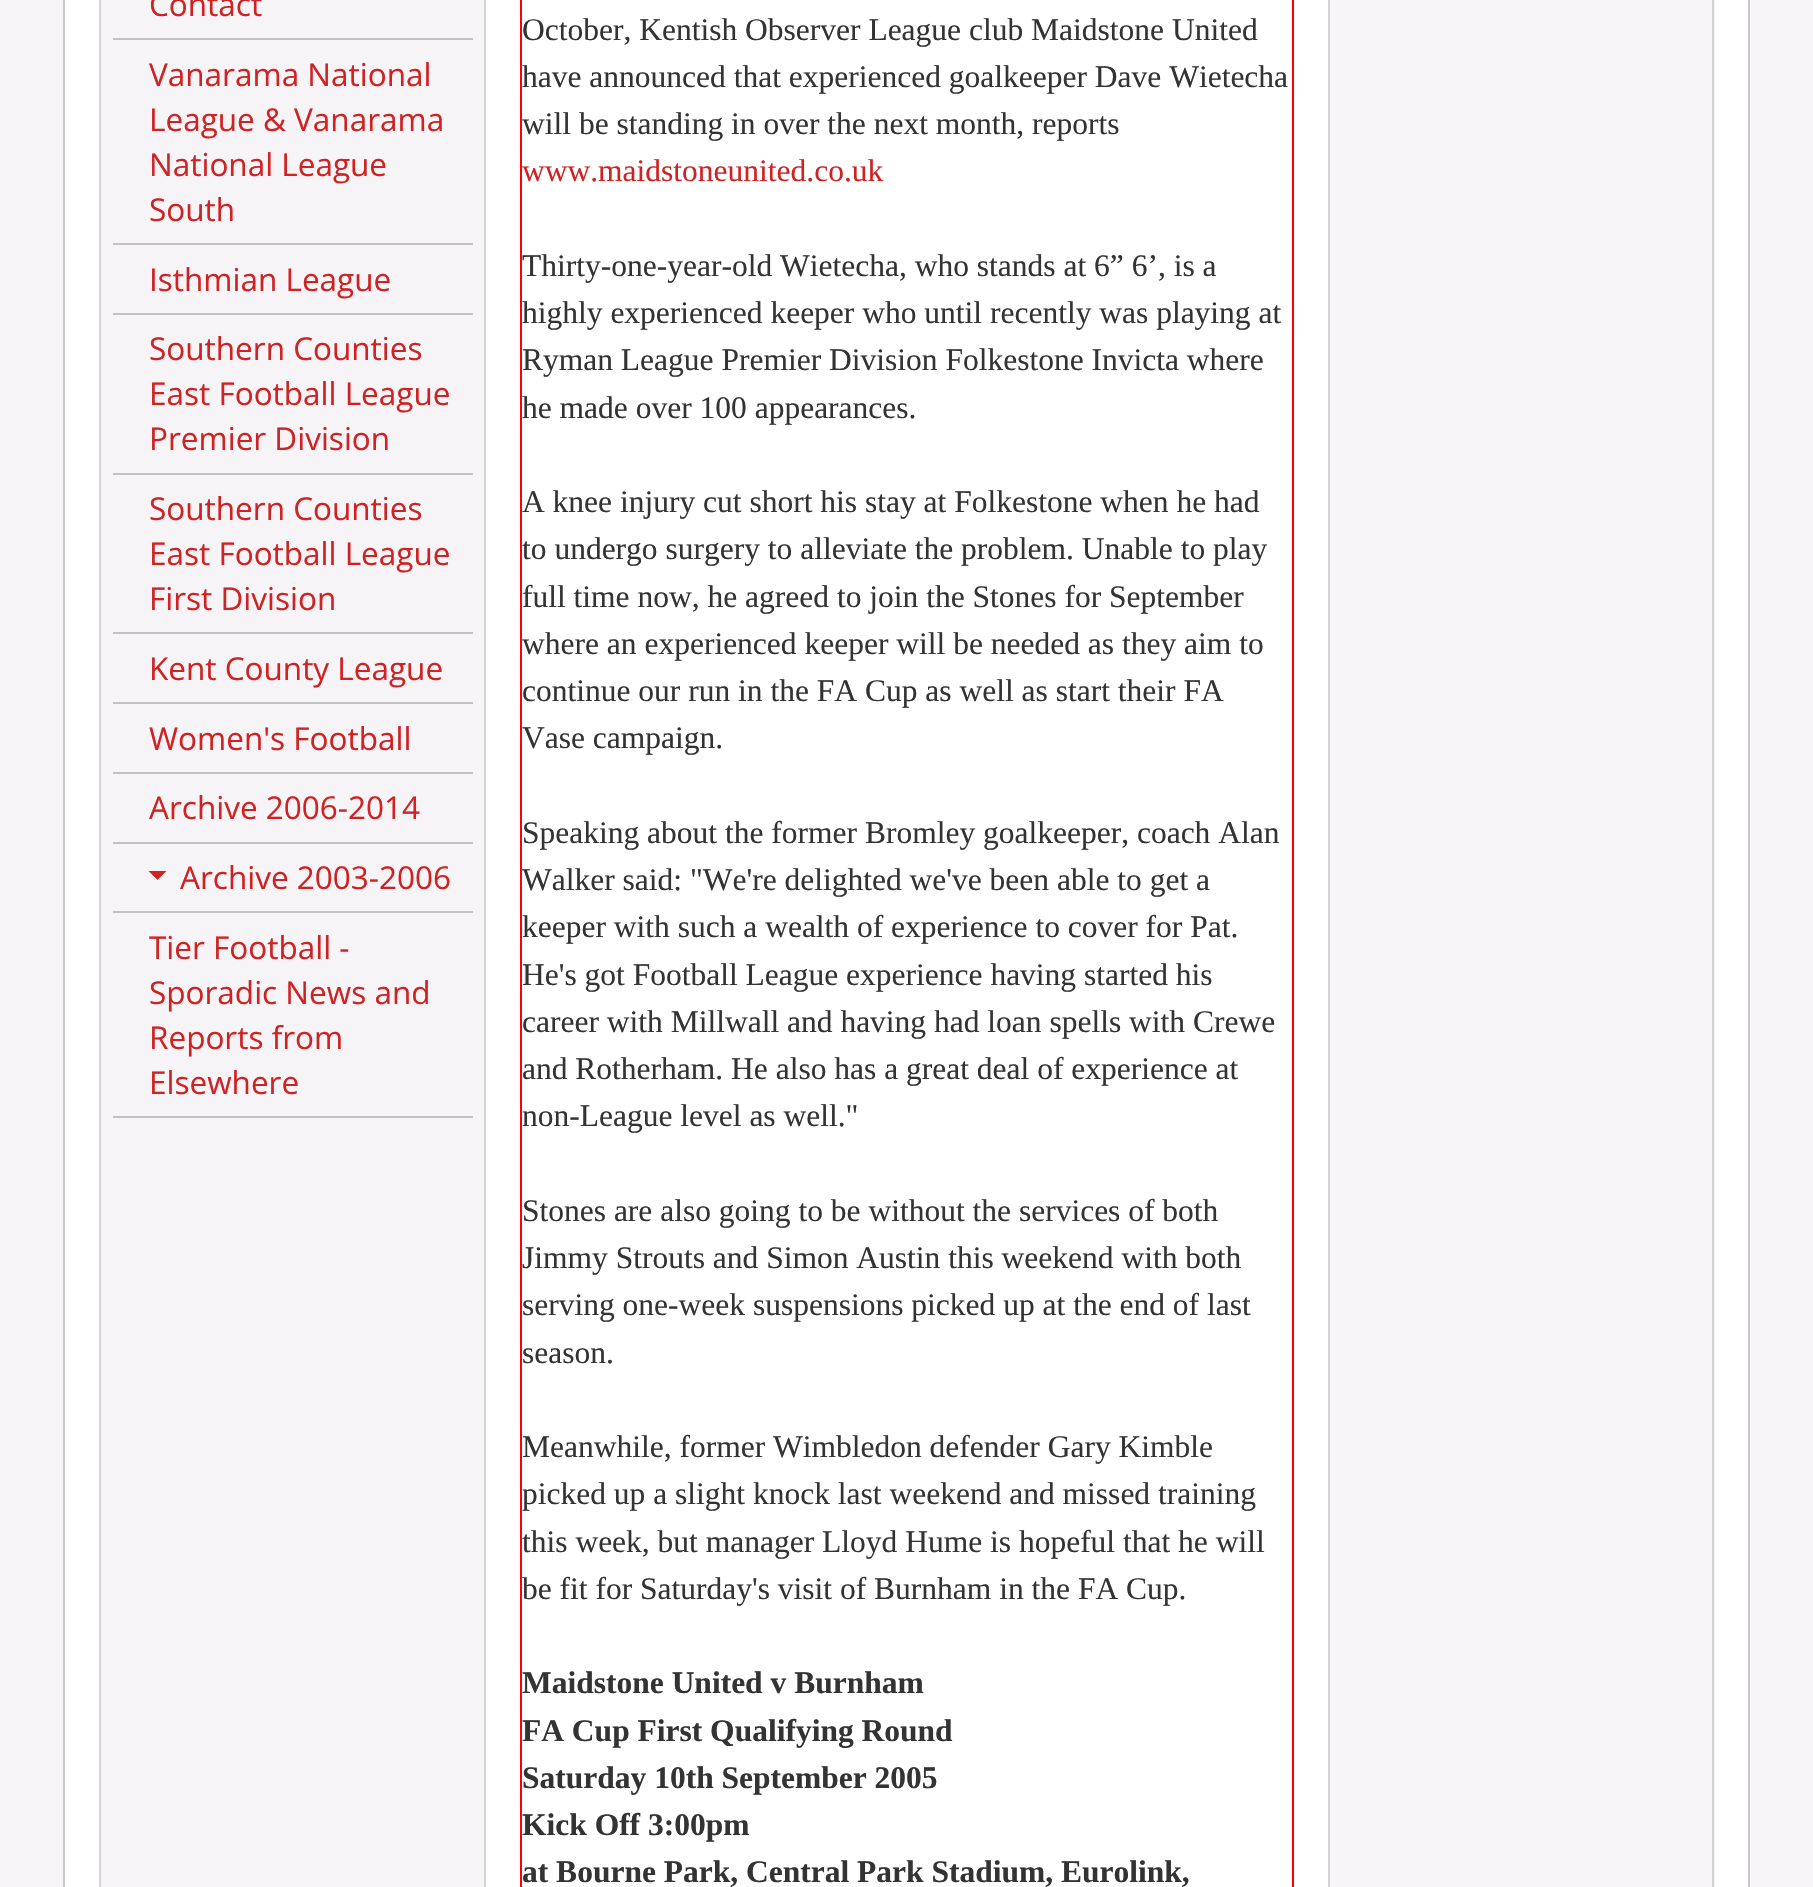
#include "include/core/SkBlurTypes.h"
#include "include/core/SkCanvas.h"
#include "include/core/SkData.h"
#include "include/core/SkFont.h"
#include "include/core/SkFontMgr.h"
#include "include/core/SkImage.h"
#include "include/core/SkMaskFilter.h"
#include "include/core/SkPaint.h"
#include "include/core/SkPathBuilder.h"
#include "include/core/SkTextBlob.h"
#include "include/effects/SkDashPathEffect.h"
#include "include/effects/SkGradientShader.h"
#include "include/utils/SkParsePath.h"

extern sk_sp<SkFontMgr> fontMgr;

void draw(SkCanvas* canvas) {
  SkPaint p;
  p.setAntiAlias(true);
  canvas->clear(SkColorSetRGB(246, 244, 247));
  p.setColor(SK_ColorWHITE);
  canvas->drawRect(SkRect::MakeLTRB(65, 0, 1751, 1887), p);
  p.setColor(SkColorSetRGB(200, 198, 201));
  canvas->drawRect(SkRect::MakeLTRB(1748, 0, 1750, 1887), p);
  canvas->drawRect(SkRect::MakeLTRB(63, 0, 65, 1887), p);
  p.setColor(SkColorSetRGB(247, 244, 247));
  canvas->drawRect(SkRect::MakeLTRB(101, 0, 484, 1887), p);
  p.setColor(SkColorSetRGB(211, 211, 211));
  canvas->drawRect(SkRect::MakeLTRB(484, 0, 486, 1887), p);
  canvas->drawRect(SkRect::MakeLTRB(99, 0, 101, 1887), p);
  p.setColor(SkColorSetRGB(194, 193, 195));
  canvas->drawRect(SkRect::MakeLTRB(113, 38, 473, 40), p);
  canvas->drawRect(SkRect::MakeLTRB(113, 243, 473, 245), p);
  canvas->drawRect(SkRect::MakeLTRB(113, 313, 473, 315), p);
  canvas->drawRect(SkRect::MakeLTRB(113, 473, 473, 475), p);
  canvas->drawRect(SkRect::MakeLTRB(113, 632, 473, 634), p);
  canvas->drawRect(SkRect::MakeLTRB(113, 702, 473, 704), p);
  canvas->drawRect(SkRect::MakeLTRB(113, 772, 473, 774), p);
  canvas->drawRect(SkRect::MakeLTRB(113, 842, 473, 844), p);
  canvas->drawRect(SkRect::MakeLTRB(113, 911, 473, 913), p);
  p.setColor(SkColorSetRGB(208, 34, 35));
  canvas->drawPath(SkPathBuilder().moveTo(148.5f, 871).lineTo(166.5f, 871).lineTo(157.5f, 880).close().detach(), p);
  p.setColor(SkColorSetRGB(194, 193, 195));
  canvas->drawRect(SkRect::MakeLTRB(113, 1116, 473, 1118), p);
  p.setColor(SkColorSetRGB(255, 0, 0));
  canvas->drawRect(SkRect::MakeLTRB(1292, 0, 1294, 1887), p);
  canvas->drawRect(SkRect::MakeLTRB(520, 0, 522, 1887), p);
  p.setColor(SkColorSetRGB(247, 244, 247));
  canvas->drawRect(SkRect::MakeLTRB(1330, 0, 1715, 1887), p);
  p.setColor(SkColorSetRGB(211, 211, 211));
  canvas->drawRect(SkRect::MakeLTRB(1712, 0, 1714, 1887), p);
  canvas->drawRect(SkRect::MakeLTRB(1328, 0, 1330, 1887), p);
  SkFont font1(fontMgr->matchFamilyStyle("Open Sans", SkFontStyle::Normal()), 31.5f);
  font1.setSubpixel(true);
  p.setColor(SkColorSetRGB(208, 34, 35));
  canvas->drawString("Contact", 149, 16, font1, p);
  canvas->drawString("Vanarama National", 149, 86, font1, p);
  canvas->drawString("League & Vanarama", 149, 131, font1, p);
  canvas->drawString("National League", 149, 176, font1, p);
  canvas->drawString("South", 149, 221, font1, p);
  canvas->drawString("Isthmian League", 149, 291, font1, p);
  canvas->drawString("Southern Counties", 149, 360, font1, p);
  canvas->drawString("East Football League", 149, 405, font1, p);
  canvas->drawString("Premier Division", 149, 450, font1, p);
  canvas->drawString("Southern Counties", 149, 520, font1, p);
  canvas->drawString("East Football League", 149, 565, font1, p);
  canvas->drawString("First Division", 149, 610, font1, p);
  canvas->drawString("Kent County League", 149, 680, font1, p);
  canvas->drawString("Women's Football", 149, 750, font1, p);
  canvas->drawString("Archive 2006-2014", 149, 819, font1, p);
  canvas->drawString("Archive 2003-2006", 180, 889, font1, p);
  canvas->drawString("Tier Football -", 149, 959, font1, p);
  canvas->drawString("Sporadic News and", 149, 1004, font1, p);
  canvas->drawString("Reports from", 149, 1049, font1, p);
  canvas->drawString("Elsewhere", 149, 1094, font1, p);
  SkFont font2(fontMgr->matchFamilyStyle("Liberation Serif", SkFontStyle::Normal()), 31.5f);
  font2.setSubpixel(true);
  p.setColor(SkColorSetRGB(51, 51, 51));
  canvas->drawString("October, Kentish Observer League club Maidstone United", 522, 40, font2, p);
  canvas->drawString("have announced that experienced goalkeeper Dave Wietecha", 522, 87, font2, p);
  canvas->drawString("will be standing in over the next month, reports", 522, 134, font2, p);
  p.setColor(SkColorSetRGB(208, 34, 35));
  canvas->drawString("www.maidstoneunited.co.uk", 522, 181, font2, p);
  p.setColor(SkColorSetRGB(51, 51, 51));
  canvas->drawString("Thirty-one-year-old Wietecha, who stands at 6” 6’, is a", 522, 276, font2, p);
  canvas->drawString("highly experienced keeper who until recently was playing at", 522, 323, font2, p);
  canvas->drawString("Ryman League Premier Division Folkestone Invicta where", 522, 370, font2, p);
  canvas->drawString("he made over 100 appearances.", 522, 418, font2, p);
  canvas->drawString("A knee injury cut short his stay at Folkestone when he had", 522, 512, font2, p);
  canvas->drawString("to undergo surgery to alleviate the problem. Unable to play", 522, 559, font2, p);
  canvas->drawString("full time now, he agreed to join the Stones for September", 522, 607, font2, p);
  canvas->drawString("where an experienced keeper will be needed as they aim to", 522, 654, font2, p);
  canvas->drawString("continue our run in the FA Cup as well as start their FA", 522, 701, font2, p);
  canvas->drawString("Vase campaign.", 522, 748, font2, p);
  canvas->drawString("Speaking about the former Bromley goalkeeper, coach Alan", 522, 843, font2, p);
  canvas->drawString("Walker said: \"We're delighted we've been able to get a", 522, 890, font2, p);
  canvas->drawString("keeper with such a wealth of experience to cover for Pat.", 522, 937, font2, p);
  canvas->drawString("He's got Football League experience having started his", 522, 985, font2, p);
  canvas->drawString("career with Millwall and having had loan spells with Crewe", 522, 1032, font2, p);
  canvas->drawString("and Rotherham. He also has a great deal of experience at", 522, 1079, font2, p);
  canvas->drawString("non-League level as well.\"", 522, 1126, font2, p);
  canvas->drawString("Stones are also going to be without the services of both", 522, 1221, font2, p);
  canvas->drawString("Jimmy Strouts and Simon Austin this weekend with both", 522, 1268, font2, p);
  canvas->drawString("serving one-week suspensions picked up at the end of last", 522, 1315, font2, p);
  canvas->drawString("season.", 522, 1363, font2, p);
  canvas->drawString("Meanwhile, former Wimbledon defender Gary Kimble", 522, 1457, font2, p);
  canvas->drawString("picked up a slight knock last weekend and missed training", 522, 1504, font2, p);
  canvas->drawString("this week, but manager Lloyd Hume is hopeful that he will", 522, 1552, font2, p);
  canvas->drawString("be fit for Saturday's visit of Burnham in the FA Cup.", 522, 1599, font2, p);
  SkFont font3(fontMgr->matchFamilyStyle("Liberation Serif", SkFontStyle::Bold()), 31.5f);
  font3.setSubpixel(true);
  canvas->drawString("Maidstone United v Burnham", 522, 1693, font3, p);
  canvas->drawString("FA Cup First Qualifying Round", 522, 1741, font3, p);
  canvas->drawString("Saturday 10th September 2005", 522, 1788, font3, p);
  canvas->drawString("Kick Off 3:00pm", 522, 1835, font3, p);
  canvas->drawString("at Bourne Park, Central Park Stadium, Eurolink,", 522, 1882, font3, p);
}
